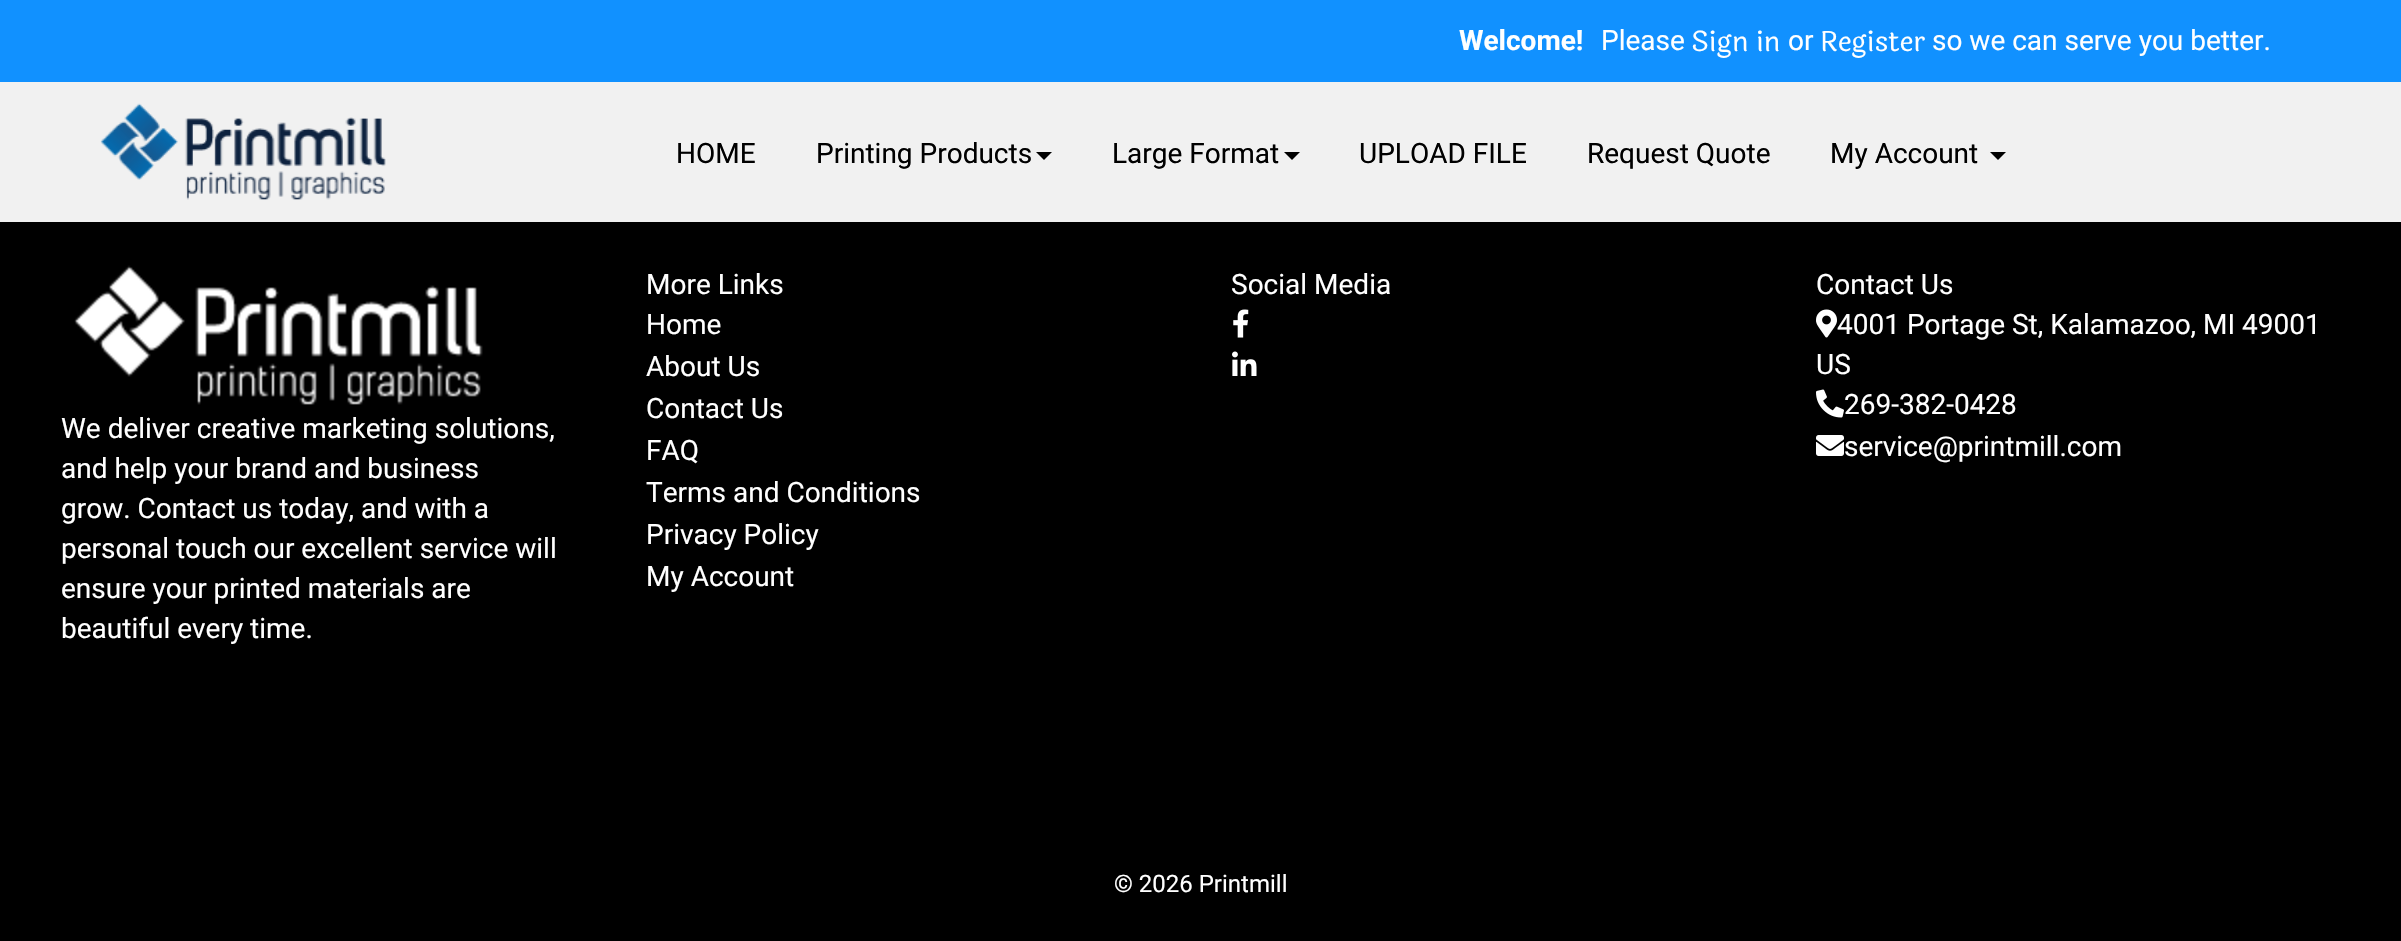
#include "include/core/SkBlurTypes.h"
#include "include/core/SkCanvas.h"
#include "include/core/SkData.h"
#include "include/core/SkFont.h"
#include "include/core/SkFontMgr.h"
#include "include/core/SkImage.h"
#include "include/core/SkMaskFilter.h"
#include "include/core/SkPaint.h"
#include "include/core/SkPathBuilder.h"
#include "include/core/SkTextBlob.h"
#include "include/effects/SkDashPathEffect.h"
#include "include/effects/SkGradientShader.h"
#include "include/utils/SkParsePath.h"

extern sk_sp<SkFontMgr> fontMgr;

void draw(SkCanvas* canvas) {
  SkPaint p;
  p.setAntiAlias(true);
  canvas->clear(SK_ColorBLACK);
  p.setColor(SkColorSetRGB(241, 241, 241));
  canvas->drawRect(SkRect::MakeLTRB(0, 82, 2401, 222), p);
  p.setColor(SkColorSetRGB(17, 145, 255));
  canvas->drawRect(SkRect::MakeLTRB(0, 0, 2401, 82), p);
  canvas->drawImageRect(SkImages::DeferredFromEncodedData(SkData::MakeFromFileName("images/1.png")), SkRect::MakeLTRB(100, 103, 386, 200), SkSamplingOptions());
  p.setColor(SK_ColorBLACK);
  canvas->drawPath(SkPathBuilder().moveTo(1036, 152).lineTo(1052, 152).lineTo(1044, 160).close().detach(), p);
  canvas->drawPath(SkPathBuilder().moveTo(1284, 152).lineTo(1300, 152).lineTo(1292, 160).close().detach(), p);
  canvas->drawPath(SkPathBuilder().moveTo(1990, 152).lineTo(2006, 152).lineTo(1998, 160).close().detach(), p);
  canvas->drawImageRect(SkImages::DeferredFromEncodedData(SkData::MakeFromFileName("images/2.png")), SkRect::MakeLTRB(1233, 309, 1249, 338), SkSamplingOptions());
  canvas->drawImageRect(SkImages::DeferredFromEncodedData(SkData::MakeFromFileName("images/3.png")), SkRect::MakeLTRB(1232, 351, 1257, 376), SkSamplingOptions());
  canvas->drawImageRect(SkImages::DeferredFromEncodedData(SkData::MakeFromFileName("images/4.png")), SkRect::MakeLTRB(1816, 309, 1837, 338), SkSamplingOptions());
  canvas->drawImageRect(SkImages::DeferredFromEncodedData(SkData::MakeFromFileName("images/5.png")), SkRect::MakeLTRB(1816, 389, 1844, 418), SkSamplingOptions());
  canvas->drawImageRect(SkImages::DeferredFromEncodedData(SkData::MakeFromFileName("images/6.png")), SkRect::MakeLTRB(1816, 435, 1844, 456), SkSamplingOptions());
  canvas->drawImageRect(SkImages::DeferredFromEncodedData(SkData::MakeFromFileName("images/7.png")), SkRect::MakeLTRB(74, 265, 483, 405), SkSamplingOptions());
  SkFont font1(fontMgr->matchFamilyStyle("Roboto", SkFontStyle::Bold()), 28);
  font1.setSubpixel(true);
  p.setColor(SK_ColorWHITE);
  canvas->drawString("Welcome!", 1459, 50, font1, p);
  SkFont font2(fontMgr->matchFamilyStyle("Roboto", SkFontStyle::Normal()), 28);
  font2.setSubpixel(true);
  canvas->drawString("Please", 1601, 50, font2, p);
  SkFont font3(fontMgr->matchFamilyStyle("Laila", SkFontStyle::Normal()), 28);
  font3.setSubpixel(true);
  canvas->drawString("Sign in", 1691, 51, font3, p);
  canvas->drawString("or", 1788, 50, font2, p);
  canvas->drawString("Register", 1820, 51, font3, p);
  canvas->drawString("so we can serve you better.", 1932, 50, font2, p);
  p.setColor(SK_ColorBLACK);
  canvas->drawString("HOME", 676, 163, font2, p);
  canvas->drawString("Printing Products", 816, 163, font2, p);
  canvas->drawString("Large Format", 1112, 163, font2, p);
  canvas->drawString("UPLOAD FILE", 1359, 163, font2, p);
  canvas->drawString("Request Quote", 1587, 163, font2, p);
  canvas->drawString("My Account", 1830, 163, font2, p);
  p.setColor(SK_ColorWHITE);
  canvas->drawString("More Links", 646, 294, font2, p);
  canvas->drawString("Home", 646, 334, font2, p);
  canvas->drawString("About Us", 646, 376, font2, p);
  canvas->drawString("Contact Us", 646, 418, font2, p);
  canvas->drawString("FAQ", 646, 460, font2, p);
  canvas->drawString("Terms and Conditions", 646, 502, font2, p);
  canvas->drawString("Privacy Policy", 646, 544, font2, p);
  canvas->drawString("My Account", 646, 586, font2, p);
  canvas->drawString("Social Media", 1231, 294, font2, p);
  canvas->drawString("Contact Us", 1816, 294, font2, p);
  canvas->drawString("4001 Portage St, Kalamazoo, MI 49001", 1837, 334, font2, p);
  canvas->drawString("US", 1816, 374, font2, p);
  canvas->drawString("269-382-0428", 1844, 414, font2, p);
  canvas->drawString("service@printmill.com", 1844, 456, font2, p);
  canvas->drawString("We deliver creative marketing solutions,", 61, 438, font2, p);
  canvas->drawString("and help your brand and business", 61, 478, font2, p);
  canvas->drawString("grow. Contact us today, and with a", 61, 518, font2, p);
  canvas->drawString("personal touch our excellent service will", 61, 558, font2, p);
  canvas->drawString("ensure your printed materials are", 61, 598, font2, p);
  canvas->drawString("beautiful every time.", 61, 638, font2, p);
  SkFont font4(fontMgr->matchFamilyStyle("Roboto", SkFontStyle::Normal()), 24);
  font4.setSubpixel(true);
  canvas->drawString("© 2026 Printmill", 1114, 892, font4, p);
}
